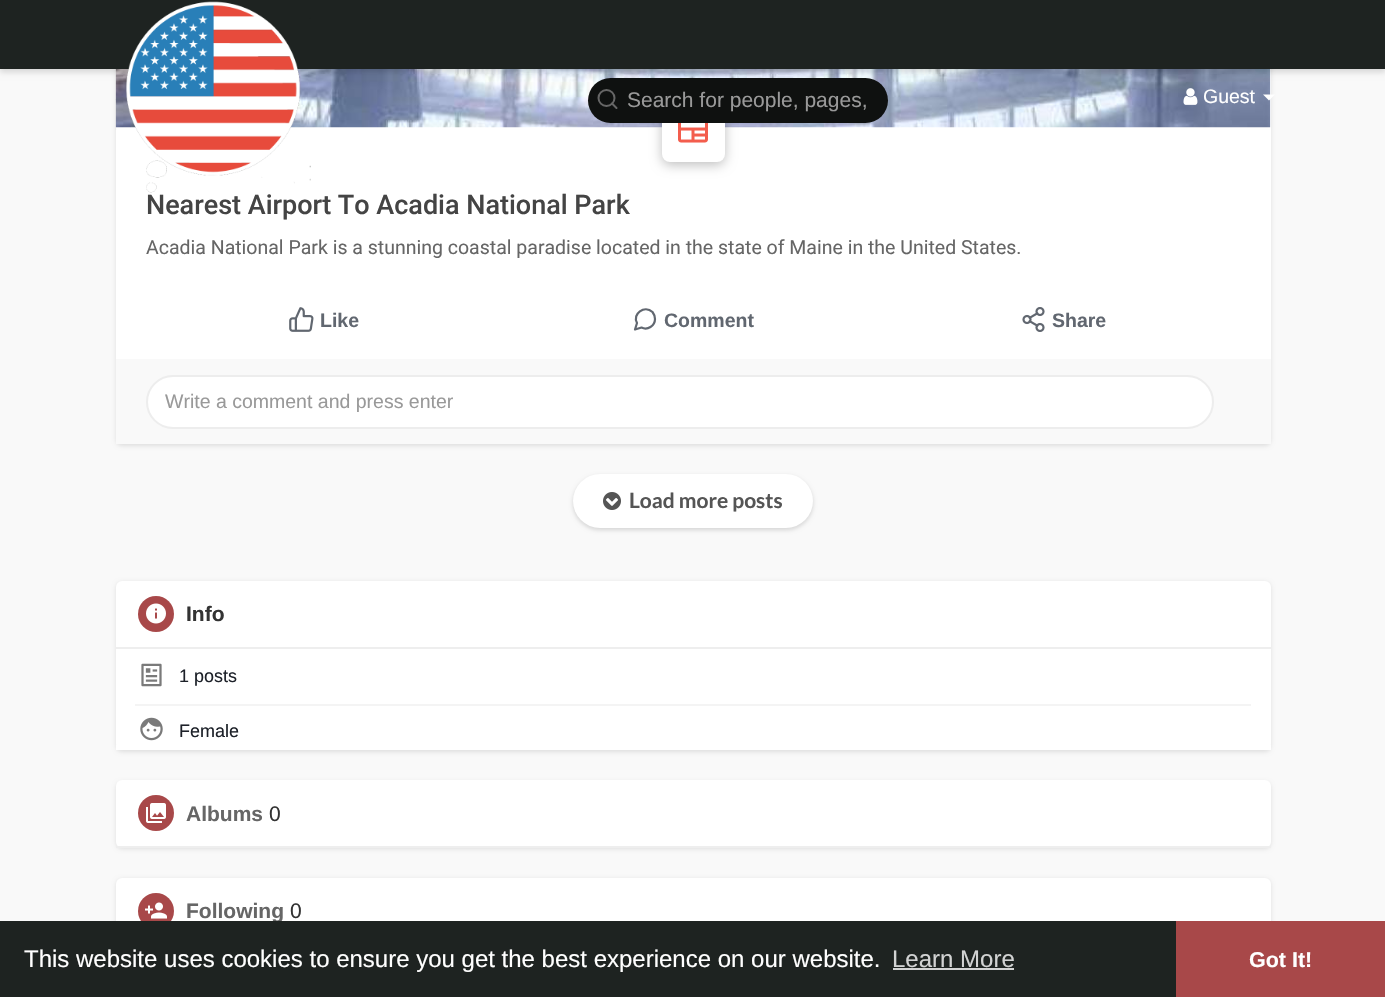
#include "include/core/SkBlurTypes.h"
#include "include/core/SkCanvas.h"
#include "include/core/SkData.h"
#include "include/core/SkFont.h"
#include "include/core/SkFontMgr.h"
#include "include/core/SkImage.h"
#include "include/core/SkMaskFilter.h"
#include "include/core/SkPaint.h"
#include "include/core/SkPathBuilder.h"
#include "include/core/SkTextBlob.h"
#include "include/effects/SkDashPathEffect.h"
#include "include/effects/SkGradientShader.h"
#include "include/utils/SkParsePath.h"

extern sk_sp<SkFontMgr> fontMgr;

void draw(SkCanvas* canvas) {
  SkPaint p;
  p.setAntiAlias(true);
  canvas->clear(SkColorSetRGB(249, 249, 249));
  p.setColor(SkColorSetARGB(26, 0, 0, 0));
  p.setMaskFilter(SkMaskFilter::MakeBlur(kNormal_SkBlurStyle, 2));
  canvas->drawRoundRect(SkRect::MakeLTRB(116, -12, 1271, 446), 6, 6, p);
  p.setMaskFilter(nullptr);
  p.setColor(SK_ColorWHITE);
  canvas->drawRect(SkRect::MakeLTRB(116, 69, 1271, 359), p);
  canvas->drawImageRect(SkImages::DeferredFromEncodedData(SkData::MakeFromFileName("images/3.png")), SkRect::MakeLTRB(115, 69, 1271, 128), SkSamplingOptions());
  p.setColor(SkColorSetARGB(38, 0, 0, 0));
  p.setMaskFilter(SkMaskFilter::MakeBlur(kNormal_SkBlurStyle, 3));
  canvas->drawRect(SkRect::MakeLTRB(0, 3, 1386, 72), p);
  p.setMaskFilter(nullptr);
  p.setColor(SkColorSetRGB(30, 35, 33));
  canvas->drawRect(SkRect::MakeLTRB(0, 0, 1385, 69), p);
  canvas->drawImageRect(SkImages::DeferredFromEncodedData(SkData::MakeFromFileName("images/1.png")), SkRect::MakeLTRB(115, 1, 311, 193), SkSamplingOptions());
  p.setColor(SkColorSetARGB(64, 0, 0, 0));
  p.setMaskFilter(SkMaskFilter::MakeBlur(kNormal_SkBlurStyle, 6));
  canvas->drawRoundRect(SkRect::MakeLTRB(662, 99, 725, 165), 8, 8, p);
  p.setMaskFilter(nullptr);
  p.setColor(SK_ColorWHITE);
  canvas->drawRoundRect(SkRect::MakeLTRB(662, 96, 725, 162), 8, 8, p);
  p.setColor(SkColorSetRGB(15, 17, 16));
  canvas->drawRoundRect(SkRect::MakeLTRB(588, 78, 888, 123), 22.5f, 22.5f, p);
  p.setStyle(SkPaint::kStroke_Style);
  p.setStrokeWidth(2);
  p.setColor(SkColorSetRGB(102, 102, 102));
  canvas->drawCircle(606.5f, 98, 8, p);
  p.setStrokeCap(SkPaint::kRound_Cap);
  p.setStrokeJoin(SkPaint::kRound_Join);
  canvas->drawPath(SkPathBuilder().moveTo(616.5f, 108).lineTo(612, 103.5f).detach(), p);
  canvas->drawImageRect(SkImages::DeferredFromEncodedData(SkData::MakeFromFileName("images/2.png")), SkRect::MakeLTRB(1183, 88, 1198, 105), SkSamplingOptions());
  p.setStyle(SkPaint::kFill_Style);
  p.setColor(SK_ColorWHITE);
  canvas->drawPath(SkPathBuilder().moveTo(1263, 94.5f).lineTo(1275, 94.5f).lineTo(1269, 100.5f).close().detach(), p);
  canvas->drawImageRect(SkImages::DeferredFromEncodedData(SkData::MakeFromFileName("images/4.png")), SkRect::MakeLTRB(678, 123, 708, 143), SkSamplingOptions());
  canvas->drawImageRect(SkImages::DeferredFromEncodedData(SkData::MakeFromFileName("images/5.png")), SkRect::MakeLTRB(289, 307, 314, 332), SkSamplingOptions());
  p.setStyle(SkPaint::kStroke_Style);
  p.setStrokeWidth(2.2f);
  p.setColor(SkColorSetRGB(97, 103, 112));
  canvas->drawPath(SkPathBuilder().moveTo(655, 319).cubicTo(655, 326, 647.5f, 330.5f, 641.5f, 327.5f).lineTo(635, 329.5f).lineTo(637, 323).cubicTo(632, 314, 644.5f, 304.5f, 652.5f, 312).cubicTo(654, 314, 655, 316.5f, 655, 319).close().detach(), p);
  canvas->drawImageRect(SkImages::DeferredFromEncodedData(SkData::MakeFromFileName("images/6.png")), SkRect::MakeLTRB(1022, 307, 1045, 332), SkSamplingOptions());
  p.setStyle(SkPaint::kFill_Style);
  p.setColor(SkColorSetRGB(249, 249, 249));
  canvas->drawRect(SkRect::MakeLTRB(116, 359, 1271, 444), p);
  p.setColor(SK_ColorWHITE);
  canvas->drawRoundRect(SkRect::MakeLTRB(147, 376, 1213, 428), 26, 26, p);
  p.setStyle(SkPaint::kStroke_Style);
  p.setStrokeWidth(2);
  p.setStrokeCap(SkPaint::kButt_Cap);
  p.setStrokeJoin(SkPaint::kMiter_Join);
  p.setColor(SkColorSetRGB(237, 237, 237));
  canvas->drawRoundRect(SkRect::MakeLTRB(147, 376, 1213, 428), 26, 26, p);
  p.setStyle(SkPaint::kFill_Style);
  p.setColor(SkColorSetARGB(38, 0, 0, 0));
  p.setMaskFilter(SkMaskFilter::MakeBlur(kNormal_SkBlurStyle, 2));
  canvas->drawRoundRect(SkRect::MakeLTRB(573, 476, 813, 530), 27, 27, p);
  p.setMaskFilter(nullptr);
  p.setColor(SK_ColorWHITE);
  canvas->drawRoundRect(SkRect::MakeLTRB(573, 474, 813, 528), 27, 27, p);
  canvas->drawImageRect(SkImages::DeferredFromEncodedData(SkData::MakeFromFileName("images/7.png")), SkRect::MakeLTRB(603, 492, 621, 510), SkSamplingOptions());
  p.setColor(SkColorSetARGB(26, 0, 0, 0));
  p.setMaskFilter(SkMaskFilter::MakeBlur(kNormal_SkBlurStyle, 2));
  canvas->drawRoundRect(SkRect::MakeLTRB(116, 582, 1271, 752), 6, 6, p);
  p.setMaskFilter(nullptr);
  p.setColor(SK_ColorWHITE);
  canvas->drawRoundRect(SkRect::MakeLTRB(116, 581, 1271, 750), 6, 6, p);
  p.setColor(SkColorSetRGB(238, 238, 238));
  canvas->drawRect(SkRect::MakeLTRB(116, 647, 1271, 649), p);
  p.setColor(SkColorSetRGB(168, 72, 73));
  canvas->drawCircle(156, 614, 18, p);
  canvas->drawImageRect(SkImages::DeferredFromEncodedData(SkData::MakeFromFileName("images/8.png")), SkRect::MakeLTRB(146, 603, 166, 624), SkSamplingOptions());
  canvas->drawImageRect(SkImages::DeferredFromEncodedData(SkData::MakeFromFileName("images/9.png")), SkRect::MakeLTRB(141, 663, 162, 687), SkSamplingOptions());
  p.setColor(SkColorSetRGB(244, 244, 244));
  canvas->drawRect(SkRect::MakeLTRB(135, 704, 1251, 706), p);
  p.setColor(SK_ColorWHITE);
  canvas->drawRect(SkRect::MakeLTRB(116, 745, 1271, 750), p);
  canvas->drawImageRect(SkImages::DeferredFromEncodedData(SkData::MakeFromFileName("images/10.png")), SkRect::MakeLTRB(140, 717, 163, 741), SkSamplingOptions());
  p.setColor(SkColorSetARGB(26, 0, 0, 0));
  p.setMaskFilter(SkMaskFilter::MakeBlur(kNormal_SkBlurStyle, 2));
  canvas->drawRoundRect(SkRect::MakeLTRB(116, 782, 1271, 849), 6, 6, p);
  p.setMaskFilter(nullptr);
  p.setColor(SK_ColorWHITE);
  canvas->drawRoundRect(SkRect::MakeLTRB(116, 780, 1271, 848), 6, 6, p);
  p.setColor(SkColorSetRGB(238, 238, 238));
  canvas->drawRect(SkRect::MakeLTRB(116, 846, 1271, 848), p);
  p.setColor(SkColorSetRGB(168, 72, 73));
  canvas->drawCircle(156, 813, 18, p);
  canvas->drawImageRect(SkImages::DeferredFromEncodedData(SkData::MakeFromFileName("images/11.png")), SkRect::MakeLTRB(146, 803, 166, 823), SkSamplingOptions());
  p.setColor(SkColorSetARGB(26, 0, 0, 0));
  p.setMaskFilter(SkMaskFilter::MakeBlur(kNormal_SkBlurStyle, 2));
  canvas->drawRoundRect(SkRect::MakeLTRB(116, 879, 1271, 947), 6, 6, p);
  p.setMaskFilter(nullptr);
  p.setColor(SK_ColorWHITE);
  canvas->drawRoundRect(SkRect::MakeLTRB(116, 878, 1271, 945), 6, 6, p);
  p.setColor(SkColorSetRGB(168, 72, 73));
  canvas->drawCircle(156, 911, 18, p);
  canvas->drawImageRect(SkImages::DeferredFromEncodedData(SkData::MakeFromFileName("images/12.png")), SkRect::MakeLTRB(145, 902, 167, 919), SkSamplingOptions());
  canvas->drawRect(SkRect::MakeLTRB(1176, 921, 1385, 997), p);
  SkFont font1(fontMgr->matchFamilyStyle("Liberation Sans", SkFontStyle::Normal()), 21);
  font1.setSubpixel(true);
  p.setColor(SkColorSetRGB(153, 153, 153));
  canvas->drawString("Search for people, pages,", 627, 107, font1, p);
  SkFont font2(fontMgr->matchFamilyStyle("Liberation Sans", SkFontStyle::Normal()), 19.5f);
  font2.setSubpixel(true);
  p.setColor(SK_ColorWHITE);
  canvas->drawString("Guest", 1203, 103, font2, p);
  SkFont font3(fontMgr->matchFamilyStyle("Roboto", SkFontStyle(500, SkFontStyle::kNormal_Width, SkFontStyle::kUpright_Slant)), 27);
  font3.setSubpixel(true);
  p.setColor(SkColorSetRGB(68, 68, 68));
  canvas->drawString("Nearest Airport To Acadia National Park", 146, 214, font3, p);
  SkFont font4(fontMgr->matchFamilyStyle("Roboto", SkFontStyle::Normal()), 19.5f);
  font4.setSubpixel(true);
  p.setColor(SkColorSetRGB(102, 102, 102));
  canvas->drawString("Acadia National Park is a stunning coastal paradise located in the state of Maine in the United States.", 146, 254, font4, p);
  SkFont font5(fontMgr->matchFamilyStyle("Liberation Sans", SkFontStyle::Bold()), 19.5f);
  font5.setSubpixel(true);
  p.setColor(SkColorSetRGB(97, 103, 112));
  canvas->drawString("Like", 320, 327, font5, p);
  canvas->drawString("Comment", 664, 327, font5, p);
  canvas->drawString("Share", 1052, 327, font5, p);
  p.setColor(SkColorSetRGB(153, 153, 153));
  canvas->drawString("Write a comment and press enter", 165, 408, font2, p);
  SkFont font6(fontMgr->matchFamilyStyle("Lato", SkFontStyle::Bold()), 21);
  font6.setSubpixel(true);
  p.setColor(SkColorSetRGB(85, 85, 85));
  canvas->drawString("Load more posts", 629, 508, font6, p);
  SkFont font7(fontMgr->matchFamilyStyle("Liberation Sans", SkFontStyle::Bold()), 21);
  font7.setSubpixel(true);
  p.setColor(SkColorSetRGB(51, 51, 51));
  canvas->drawString("Info", 186, 621, font7, p);
  SkFont font8(fontMgr->matchFamilyStyle("Liberation Sans", SkFontStyle::Normal()), 18);
  font8.setSubpixel(true);
  p.setColor(SkColorSetRGB(29, 33, 41));
  canvas->drawString("1 posts", 179, 682, font8, p);
  canvas->drawString("Female", 179, 737, font8, p);
  p.setColor(SkColorSetRGB(102, 102, 102));
  canvas->drawString("Albums", 186, 821, font7, p);
  p.setColor(SkColorSetRGB(51, 51, 51));
  canvas->drawString("0", 269, 821, font1, p);
  p.setColor(SkColorSetRGB(102, 102, 102));
  canvas->drawString("Following", 186, 918, font7, p);
  p.setColor(SkColorSetRGB(51, 51, 51));
  canvas->drawString("0", 290, 918, font1, p);
  p.setColor(SkColorSetRGB(30, 35, 33));
  canvas->drawRect(SkRect::MakeLTRB(0, 921, 1176, 997), p);
  SkFont font9(fontMgr->matchFamilyStyle("Liberation Sans", SkFontStyle::Normal()), 24);
  font9.setSubpixel(true);
  p.setColor(SK_ColorWHITE);
  canvas->drawString("This website uses cookies to ensure you get the best experience on our website.", 24, 967, font9, p);
  p.setColor(SkColorSetRGB(210, 211, 211));
  canvas->drawString("Learn More", 892, 967, font9, p);
  canvas->drawRect(SkRect::MakeLTRB(893, 968, 1014, 970), p);
  SkFont font10(fontMgr->matchFamilyStyle("Liberation Sans", SkFontStyle::Bold()), 21.5f);
  font10.setSubpixel(true);
  p.setColor(SK_ColorWHITE);
  canvas->drawString("Got It!", 1249, 967, font10, p);
}
